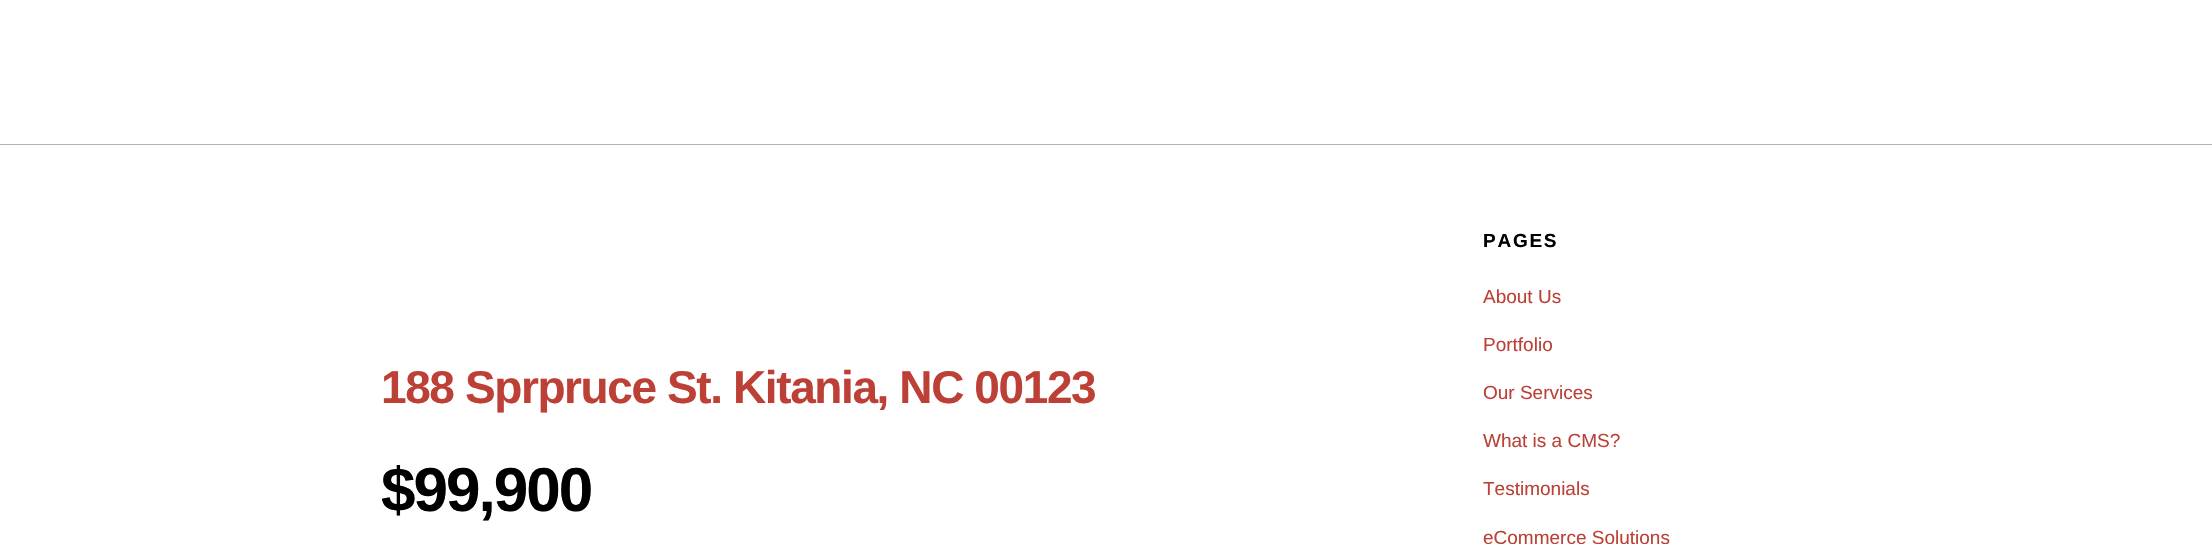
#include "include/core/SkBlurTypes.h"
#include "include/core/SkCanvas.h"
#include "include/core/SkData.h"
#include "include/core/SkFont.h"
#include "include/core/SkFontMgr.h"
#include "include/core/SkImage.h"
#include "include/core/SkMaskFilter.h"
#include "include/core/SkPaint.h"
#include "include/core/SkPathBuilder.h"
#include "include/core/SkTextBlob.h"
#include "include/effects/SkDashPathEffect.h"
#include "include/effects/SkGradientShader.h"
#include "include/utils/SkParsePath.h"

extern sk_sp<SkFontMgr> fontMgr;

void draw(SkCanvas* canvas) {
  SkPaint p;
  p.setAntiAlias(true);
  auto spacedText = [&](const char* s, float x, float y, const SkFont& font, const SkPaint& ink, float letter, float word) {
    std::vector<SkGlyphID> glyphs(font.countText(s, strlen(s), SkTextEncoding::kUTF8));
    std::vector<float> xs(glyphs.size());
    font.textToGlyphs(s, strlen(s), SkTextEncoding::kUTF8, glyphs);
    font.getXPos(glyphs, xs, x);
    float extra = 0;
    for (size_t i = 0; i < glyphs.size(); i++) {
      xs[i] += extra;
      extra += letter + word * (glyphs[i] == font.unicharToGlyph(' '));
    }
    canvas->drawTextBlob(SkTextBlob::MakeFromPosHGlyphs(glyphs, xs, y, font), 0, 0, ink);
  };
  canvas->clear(SK_ColorWHITE);
  p.setColor(SkColorSetRGB(181, 181, 181));
  canvas->drawRect(SkRect::MakeLTRB(0, 144, 2212, 145), p);
  SkFont font1(fontMgr->matchFamilyStyle("Liberation Sans", SkFontStyle::Bold()), 46);
  font1.setSubpixel(true);
  p.setColor(SkColorSetRGB(188, 64, 54));
  spacedText("188 Sprpruce St. Kitania, NC 00123", 381, 403, font1, p, -1.4f, 0);
  SkFont font2(fontMgr->matchFamilyStyle("Liberation Sans", SkFontStyle::Bold()), 62);
  font2.setSubpixel(true);
  p.setColor(SK_ColorBLACK);
  spacedText("$99,900", 381, 511, font2, p, -2, 0);
  SkFont font3(fontMgr->matchFamilyStyle("Liberation Sans", SkFontStyle::Bold()), 19);
  font3.setSubpixel(true);
  spacedText("PAGES", 1483, 247, font3, p, 1.75f, 0);
  SkFont font4(fontMgr->matchFamilyStyle("Liberation Sans", SkFontStyle::Normal()), 19);
  font4.setSubpixel(true);
  p.setColor(SkColorSetRGB(188, 64, 54));
  canvas->drawString("About Us", 1483, 303, font4, p);
  canvas->drawString("Portfolio", 1483, 351, font4, p);
  canvas->drawString("Our Services", 1483, 399, font4, p);
  canvas->drawString("What is a CMS?", 1483, 447, font4, p);
  canvas->drawString("Testimonials", 1483, 495, font4, p);
  canvas->drawString("eCommerce Solutions", 1483, 544, font4, p);
}
